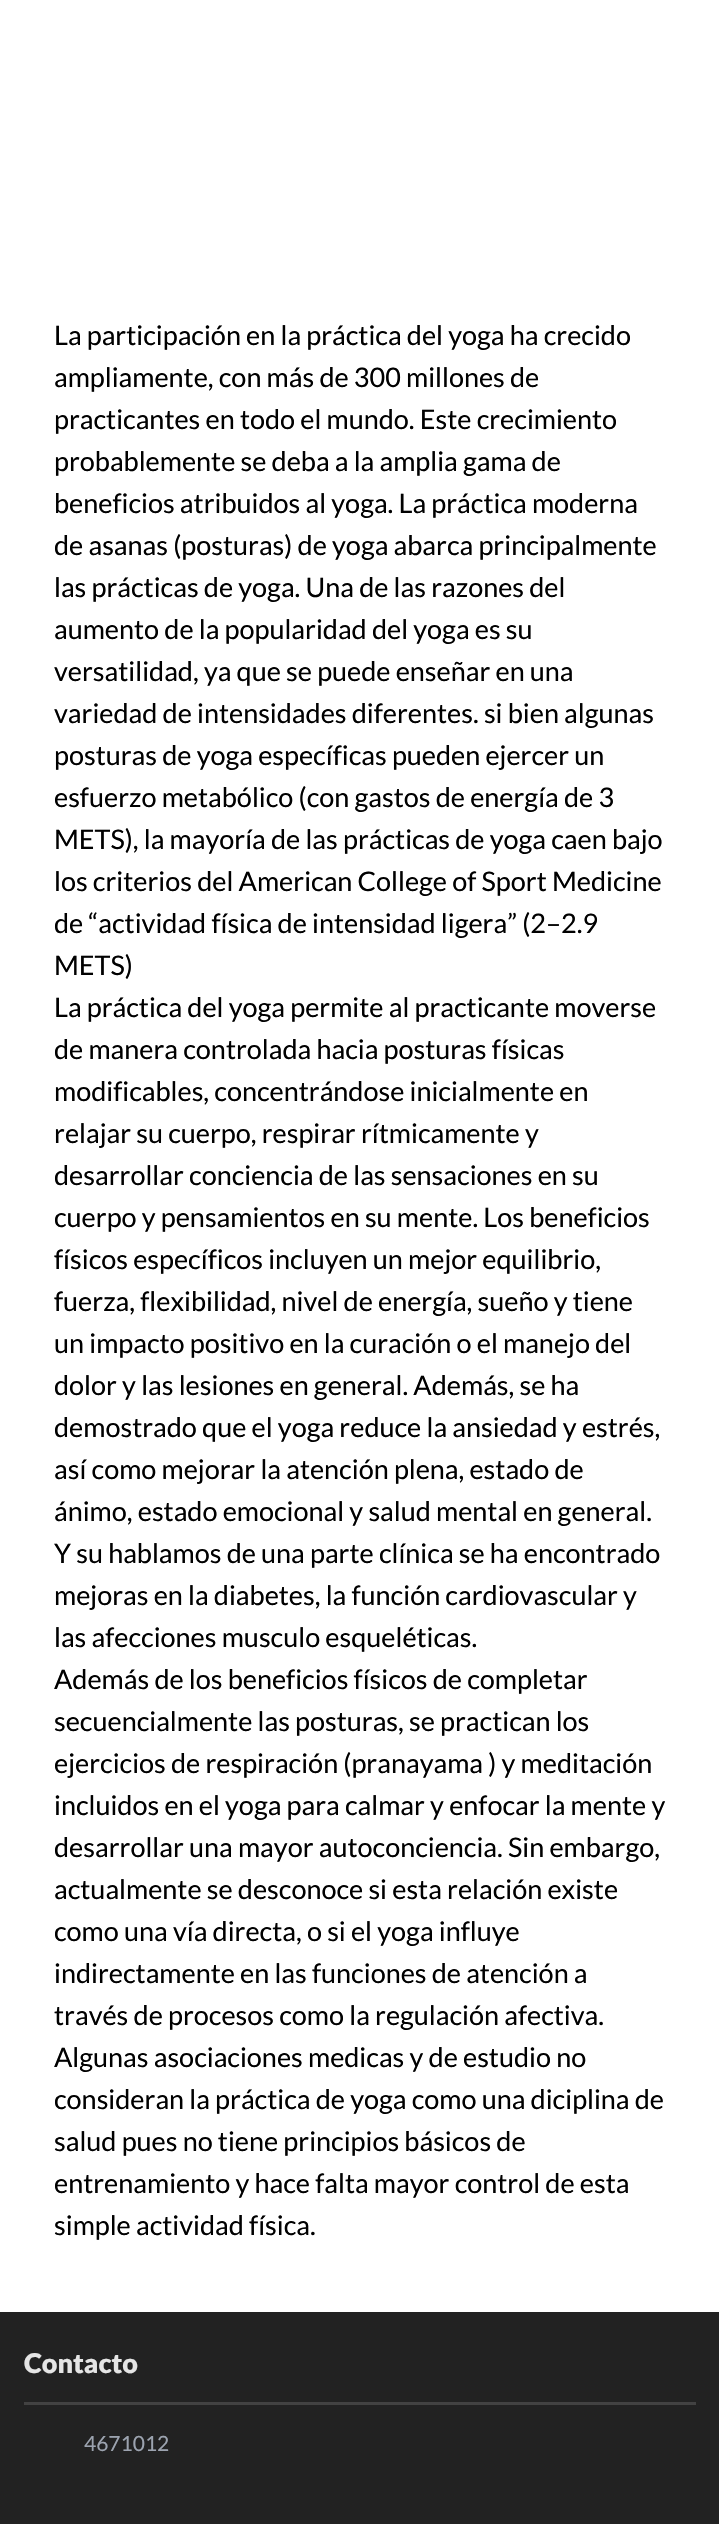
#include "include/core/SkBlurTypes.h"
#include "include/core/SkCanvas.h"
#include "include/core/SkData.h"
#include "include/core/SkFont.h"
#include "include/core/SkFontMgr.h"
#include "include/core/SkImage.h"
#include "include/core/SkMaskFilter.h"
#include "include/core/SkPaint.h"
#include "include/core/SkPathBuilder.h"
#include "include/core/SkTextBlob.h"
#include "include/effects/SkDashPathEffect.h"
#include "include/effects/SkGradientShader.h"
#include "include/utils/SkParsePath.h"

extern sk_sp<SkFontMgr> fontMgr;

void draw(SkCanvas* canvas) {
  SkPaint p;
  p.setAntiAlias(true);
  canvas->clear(SK_ColorWHITE);
  p.setColor(SkColorSetRGB(34, 34, 34));
  canvas->drawRect(SkRect::MakeLTRB(0, 2312, 719, 2524), p);
  p.setColor(SkColorSetRGB(66, 66, 66));
  canvas->drawRect(SkRect::MakeLTRB(24, 2402, 696, 2405), p);
  SkFont font1(fontMgr->matchFamilyStyle("Lato", SkFontStyle::Normal()), 27);
  font1.setSubpixel(true);
  p.setColor(SK_ColorBLACK);
  canvas->drawString("La participación en la práctica del yoga ha crecido", 54, 345, font1, p);
  canvas->drawString("ampliamente, con más de 300 millones de", 54, 387, font1, p);
  canvas->drawString("practicantes en todo el mundo. Este crecimiento", 54, 429, font1, p);
  canvas->drawString("probablemente se deba a la amplia gama de", 54, 471, font1, p);
  canvas->drawString("beneficios atribuidos al yoga. La práctica moderna", 54, 513, font1, p);
  canvas->drawString("de asanas (posturas) de yoga abarca principalmente", 54, 555, font1, p);
  canvas->drawString("las prácticas de yoga. Una de las razones del", 54, 597, font1, p);
  canvas->drawString("aumento de la popularidad del yoga es su", 54, 639, font1, p);
  canvas->drawString("versatilidad, ya que se puede enseñar en una", 54, 681, font1, p);
  canvas->drawString("variedad de intensidades diferentes. si bien algunas", 54, 723, font1, p);
  canvas->drawString("posturas de yoga específicas pueden ejercer un", 54, 765, font1, p);
  canvas->drawString("esfuerzo metabólico (con gastos de energía de 3", 54, 807, font1, p);
  canvas->drawString("METS), la mayoría de las prácticas de yoga caen bajo", 54, 849, font1, p);
  canvas->drawString("los criterios del American College of Sport Medicine", 54, 891, font1, p);
  canvas->drawString("de “actividad física de intensidad ligera” (2–2.9", 54, 933, font1, p);
  canvas->drawString("METS)", 54, 975, font1, p);
  canvas->drawString("La práctica del yoga permite al practicante moverse", 54, 1017, font1, p);
  canvas->drawString("de manera controlada hacia posturas físicas", 54, 1059, font1, p);
  canvas->drawString("modificables, concentrándose inicialmente en", 54, 1101, font1, p);
  canvas->drawString("relajar su cuerpo, respirar rítmicamente y", 54, 1143, font1, p);
  canvas->drawString("desarrollar conciencia de las sensaciones en su", 54, 1185, font1, p);
  canvas->drawString("cuerpo y pensamientos en su mente. Los beneficios", 54, 1227, font1, p);
  canvas->drawString("físicos específicos incluyen un mejor equilibrio,", 54, 1269, font1, p);
  canvas->drawString("fuerza, flexibilidad, nivel de energía, sueño y tiene", 54, 1311, font1, p);
  canvas->drawString("un impacto positivo en la curación o el manejo del", 54, 1353, font1, p);
  canvas->drawString("dolor y las lesiones en general. Además, se ha", 54, 1395, font1, p);
  canvas->drawString("demostrado que el yoga reduce la ansiedad y estrés,", 54, 1437, font1, p);
  canvas->drawString("así como mejorar la atención plena, estado de", 54, 1479, font1, p);
  canvas->drawString("ánimo, estado emocional y salud mental en general.", 54, 1521, font1, p);
  canvas->drawString("Y su hablamos de una parte clínica se ha encontrado", 54, 1563, font1, p);
  canvas->drawString("mejoras en la diabetes, la función cardiovascular y", 54, 1605, font1, p);
  canvas->drawString("las afecciones musculo esqueléticas.", 54, 1647, font1, p);
  canvas->drawString("Además de los beneficios físicos de completar", 54, 1689, font1, p);
  canvas->drawString("secuencialmente las posturas, se practican los", 54, 1731, font1, p);
  canvas->drawString("ejercicios de respiración (pranayama ) y meditación", 54, 1773, font1, p);
  canvas->drawString("incluidos en el yoga para calmar y enfocar la mente y", 54, 1815, font1, p);
  canvas->drawString("desarrollar una mayor autoconciencia. Sin embargo,", 54, 1857, font1, p);
  canvas->drawString("actualmente se desconoce si esta relación existe", 54, 1899, font1, p);
  canvas->drawString("como una vía directa, o si el yoga influye", 54, 1941, font1, p);
  canvas->drawString("indirectamente en las funciones de atención a", 54, 1983, font1, p);
  canvas->drawString("través de procesos como la regulación afectiva.", 54, 2025, font1, p);
  canvas->drawString("Algunas asociaciones medicas y de estudio no", 54, 2067, font1, p);
  canvas->drawString("consideran la práctica de yoga como una diciplina de", 54, 2109, font1, p);
  canvas->drawString("salud pues no tiene principios básicos de", 54, 2151, font1, p);
  canvas->drawString("entrenamiento y hace falta mayor control de esta", 54, 2193, font1, p);
  canvas->drawString("simple actividad física.", 54, 2235, font1, p);
  SkFont font2(fontMgr->matchFamilyStyle("Lato", SkFontStyle(900, SkFontStyle::kNormal_Width, SkFontStyle::kUpright_Slant)), 27);
  font2.setSubpixel(true);
  p.setColor(SkColorSetRGB(229, 229, 229));
  canvas->drawString("Contacto", 24, 2373, font2, p);
  SkFont font3(fontMgr->matchFamilyStyle("Lato", SkFontStyle::Normal()), 21);
  font3.setSubpixel(true);
  p.setColor(SkColorSetRGB(156, 163, 175));
  canvas->drawString("4671012", 84, 2451, font3, p);
}
